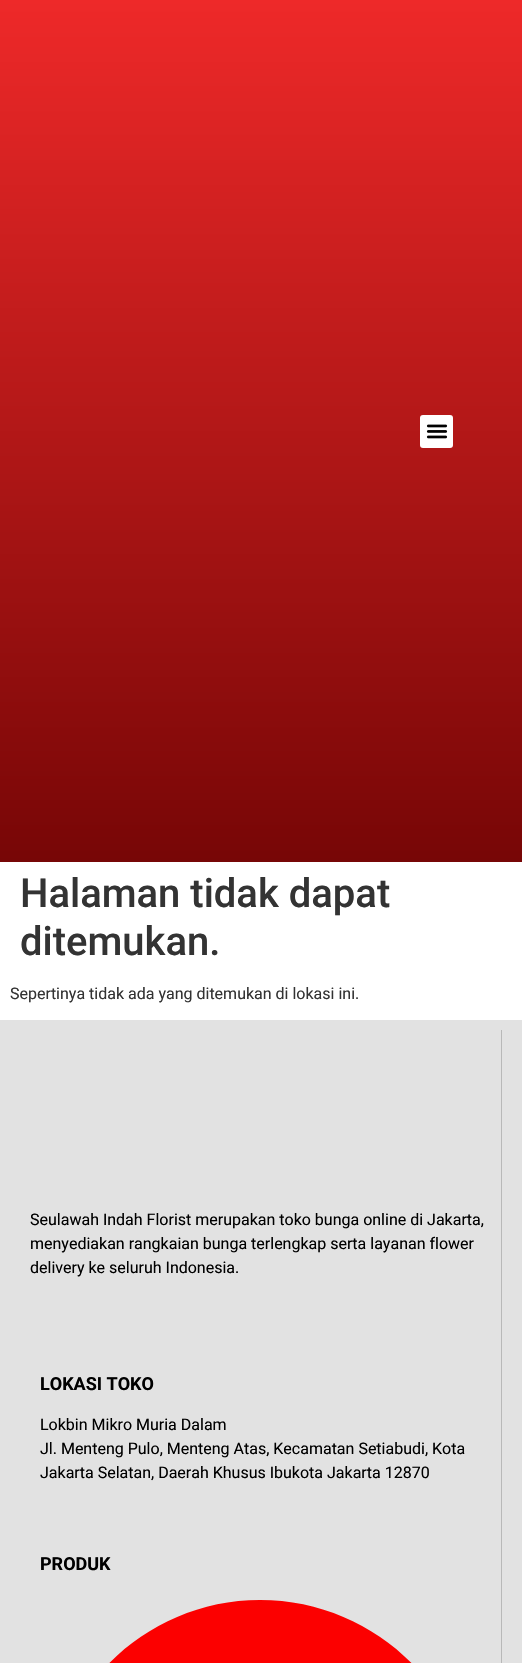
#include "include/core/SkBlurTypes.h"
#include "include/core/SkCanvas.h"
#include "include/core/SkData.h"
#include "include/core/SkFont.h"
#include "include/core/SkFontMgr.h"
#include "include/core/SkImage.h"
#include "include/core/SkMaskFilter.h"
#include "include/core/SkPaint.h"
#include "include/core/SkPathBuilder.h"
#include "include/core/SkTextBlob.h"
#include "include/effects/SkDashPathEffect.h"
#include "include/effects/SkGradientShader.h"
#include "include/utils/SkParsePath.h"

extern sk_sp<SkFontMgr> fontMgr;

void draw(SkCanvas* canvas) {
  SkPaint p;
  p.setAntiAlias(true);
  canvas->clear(SK_ColorWHITE);
  {
    const SkColor colors[] = {SkColorSetRGB(238, 41, 41), SkColorSetRGB(119, 6, 6)};
    const float stops[] = {0, 1};
    const SkPoint ends[] = {{261, 0}, {261, 862}};
    p.setShader(SkGradientShader::MakeLinear(ends, colors, stops, 2, SkTileMode::kClamp));
    p.setAlpha(255);
  }
  canvas->drawRect(SkRect::MakeLTRB(0, 0, 522, 862), p);
  p.setShader(nullptr);
  p.setColor(SK_ColorWHITE);
  canvas->drawRoundRect(SkRect::MakeLTRB(420, 415, 453, 448), 3, 3, p);
  canvas->drawImageRect(SkImages::DeferredFromEncodedData(SkData::MakeFromFileName("images/1.png")), SkRect::MakeLTRB(426, 424, 448, 439), SkSamplingOptions());
  p.setColor(SkColorSetRGB(226, 226, 226));
  canvas->drawRect(SkRect::MakeLTRB(0, 1020, 522, 1663), p);
  p.setColor(SkColorSetRGB(184, 184, 184));
  canvas->drawRect(SkRect::MakeLTRB(501, 1030, 502, 1663), p);
  p.setColor(SkColorSetRGB(252, 0, 0));
  canvas->drawPath(SkPathBuilder().moveTo(260, 1600).cubicTo(143, 1600, 47, 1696, 47, 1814).cubicTo(47, 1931, 143, 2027, 260, 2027).cubicTo(378, 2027, 474, 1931, 474, 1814).cubicTo(474, 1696, 378, 1600, 260, 1600).close().moveTo(329, 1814).cubicTo(329, 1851, 298, 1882, 260, 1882).cubicTo(223, 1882, 192, 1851, 192, 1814).cubicTo(192, 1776, 223, 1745, 260, 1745).cubicTo(298, 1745, 329, 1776, 329, 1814).close().detach(), p);
  SkFont font1(fontMgr->matchFamilyStyle("Roboto", SkFontStyle(500, SkFontStyle::kNormal_Width, SkFontStyle::kUpright_Slant)), 40);
  font1.setSubpixel(true);
  p.setColor(SkColorSetRGB(51, 51, 51));
  canvas->drawString("Halaman tidak dapat", 20, 907, font1, p);
  canvas->drawString("ditemukan.", 20, 955, font1, p);
  SkFont font2(fontMgr->matchFamilyStyle("Roboto", SkFontStyle::Normal()), 16);
  font2.setSubpixel(true);
  canvas->drawString("Sepertinya tidak ada yang ditemukan di lokasi ini.", 10, 999, font2, p);
  p.setColor(SK_ColorBLACK);
  canvas->drawString("Seulawah Indah Florist merupakan toko bunga online di Jakarta,", 30, 1225, font2, p);
  canvas->drawString("menyediakan rangkaian bunga terlengkap serta layanan flower", 30, 1249, font2, p);
  canvas->drawString("delivery ke seluruh Indonesia.", 30, 1273, font2, p);
  SkFont font3(fontMgr->matchFamilyStyle("Roboto", SkFontStyle::Bold()), 18);
  font3.setSubpixel(true);
  canvas->drawString("LOKASI TOKO", 40, 1390, font3, p);
  canvas->drawString("Lokbin Mikro Muria Dalam", 40, 1430, font2, p);
  canvas->drawString("Jl. Menteng Pulo, Menteng Atas, Kecamatan Setiabudi, Kota", 40, 1454, font2, p);
  canvas->drawString("Jakarta Selatan, Daerah Khusus Ibukota Jakarta 12870", 40, 1478, font2, p);
  canvas->drawString("PRODUK", 40, 1570, font3, p);
}
